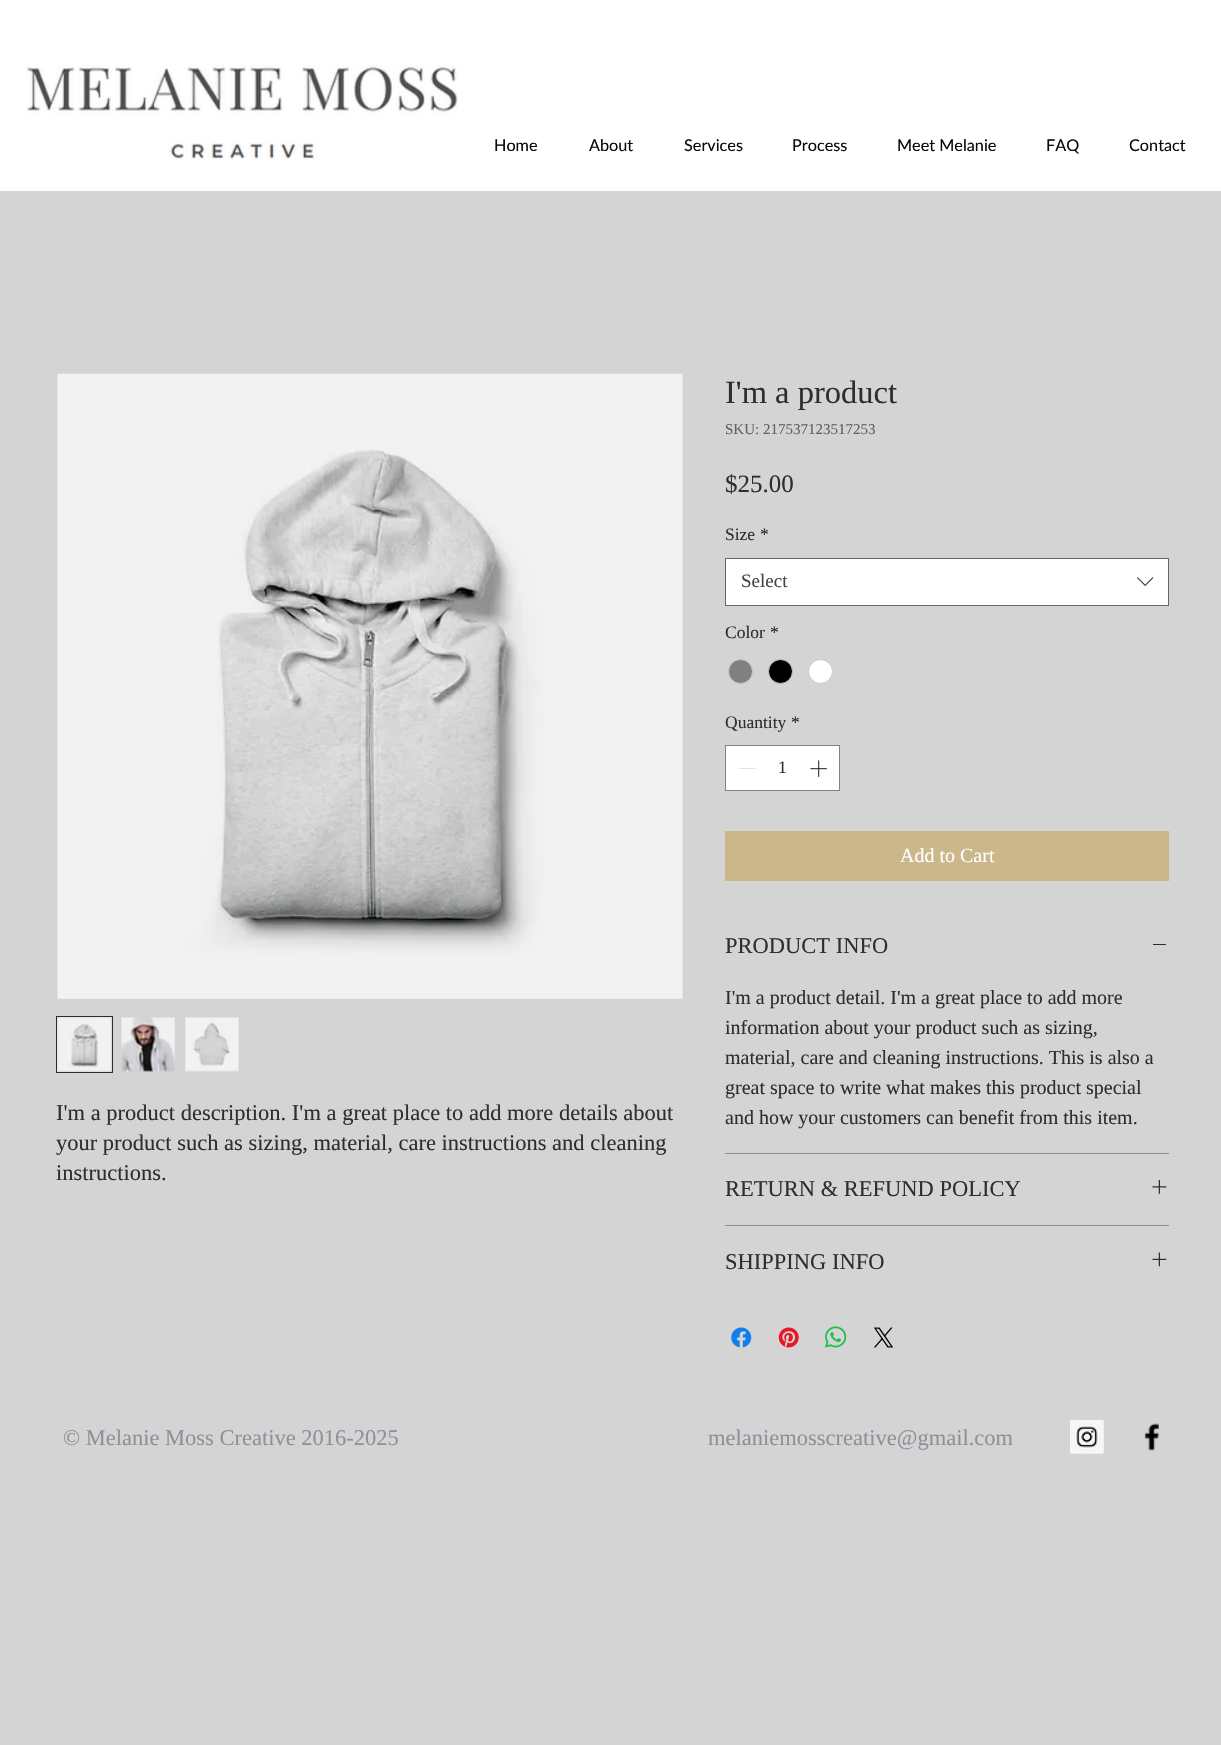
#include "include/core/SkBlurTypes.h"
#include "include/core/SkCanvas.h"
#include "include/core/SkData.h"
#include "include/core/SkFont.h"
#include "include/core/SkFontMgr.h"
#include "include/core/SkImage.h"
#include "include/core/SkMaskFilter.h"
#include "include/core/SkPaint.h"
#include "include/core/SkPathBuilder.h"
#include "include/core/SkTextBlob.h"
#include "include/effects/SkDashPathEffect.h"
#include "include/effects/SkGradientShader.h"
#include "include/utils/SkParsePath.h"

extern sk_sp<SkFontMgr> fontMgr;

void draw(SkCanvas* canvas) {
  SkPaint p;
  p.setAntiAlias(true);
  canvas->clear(SkColorSetRGB(212, 212, 212));
  p.setColor(SK_ColorWHITE);
  canvas->drawRect(SkRect::MakeLTRB(0, 0, 1221, 191), p);
  canvas->drawImageRect(SkImages::DeferredFromEncodedData(SkData::MakeFromFileName("images/1.png")), SkRect::MakeLTRB(26, 65, 458, 160), SkSamplingOptions());
  canvas->drawImageRect(SkImages::DeferredFromEncodedData(SkData::MakeFromFileName("images/2.png")), SkRect::MakeLTRB(57, 373, 683, 999), SkSamplingOptions());
  p.setStyle(SkPaint::kStroke_Style);
  p.setStrokeWidth(1);
  p.setColor(SkColorSetRGB(47, 46, 46));
  canvas->drawRect(SkRect::MakeLTRB(56.5f, 1016.5f, 112.5f, 1072.5f), p);
  canvas->drawImageRect(SkImages::DeferredFromEncodedData(SkData::MakeFromFileName("images/3.png")), SkRect::MakeLTRB(57, 1017, 112, 1072), SkSamplingOptions());
  canvas->drawImageRect(SkImages::DeferredFromEncodedData(SkData::MakeFromFileName("images/4.png")), SkRect::MakeLTRB(121, 1017, 176, 1072), SkSamplingOptions());
  canvas->drawImageRect(SkImages::DeferredFromEncodedData(SkData::MakeFromFileName("images/5.png")), SkRect::MakeLTRB(185, 1017, 239, 1072), SkSamplingOptions());
  p.setStyle(SkPaint::kFill_Style);
  p.setColor(SK_ColorWHITE);
  canvas->drawRect(SkRect::MakeLTRB(725.5f, 558.5f, 1168.5f, 605.5f), p);
  p.setStyle(SkPaint::kStroke_Style);
  p.setColor(SkColorSetRGB(102, 102, 102));
  canvas->drawRect(SkRect::MakeLTRB(725.5f, 558.5f, 1168.5f, 605.5f), p);
  canvas->drawImageRect(SkImages::DeferredFromEncodedData(SkData::MakeFromFileName("images/6.png")), SkRect::MakeLTRB(1137, 577, 1154, 587), SkSamplingOptions());
  p.setStyle(SkPaint::kFill_Style);
  p.setColor(SkColorSetRGB(128, 128, 128));
  canvas->drawCircle(740.5f, 671.5f, 12, p);
  p.setStyle(SkPaint::kStroke_Style);
  p.setColor(SkColorSetRGB(201, 201, 201));
  canvas->drawCircle(740.5f, 671.5f, 12, p);
  p.setStyle(SkPaint::kFill_Style);
  p.setColor(SK_ColorBLACK);
  canvas->drawCircle(780.5f, 671.5f, 12, p);
  p.setStyle(SkPaint::kStroke_Style);
  p.setColor(SkColorSetRGB(201, 201, 201));
  canvas->drawCircle(780.5f, 671.5f, 12, p);
  p.setStyle(SkPaint::kFill_Style);
  p.setColor(SK_ColorWHITE);
  canvas->drawCircle(820.5f, 671.5f, 12, p);
  p.setStyle(SkPaint::kStroke_Style);
  p.setColor(SkColorSetRGB(201, 201, 201));
  canvas->drawCircle(820.5f, 671.5f, 12, p);
  p.setStyle(SkPaint::kFill_Style);
  p.setColor(SK_ColorWHITE);
  canvas->drawRect(SkRect::MakeLTRB(725.5f, 745.5f, 839.5f, 790.5f), p);
  p.setStyle(SkPaint::kStroke_Style);
  p.setColor(SkColorSetRGB(130, 130, 130));
  canvas->drawRect(SkRect::MakeLTRB(725.5f, 745.5f, 839.5f, 790.5f), p);
  p.setStyle(SkPaint::kFill_Style);
  p.setColor(SkColorSetRGB(227, 227, 227));
  canvas->drawRect(SkRect::MakeLTRB(739, 768, 756, 769), p);
  canvas->drawImageRect(SkImages::DeferredFromEncodedData(SkData::MakeFromFileName("images/7.png")), SkRect::MakeLTRB(810, 760, 827, 777), SkSamplingOptions());
  p.setColor(SkColorSetRGB(203, 183, 137));
  canvas->drawRect(SkRect::MakeLTRB(725, 831, 1169, 881), p);
  p.setColor(SkColorSetRGB(142, 144, 156));
  canvas->drawRect(SkRect::MakeLTRB(725, 1153, 1169, 1154), p);
  p.setColor(SkColorSetRGB(47, 46, 46));
  canvas->drawRect(SkRect::MakeLTRB(1153, 944, 1166, 945), p);
  p.setColor(SkColorSetRGB(142, 144, 156));
  canvas->drawRect(SkRect::MakeLTRB(725, 1225, 1169, 1226), p);
  canvas->drawImageRect(SkImages::DeferredFromEncodedData(SkData::MakeFromFileName("images/8.png")), SkRect::MakeLTRB(1152, 1180, 1167, 1194), SkSamplingOptions());
  canvas->drawImageRect(SkImages::DeferredFromEncodedData(SkData::MakeFromFileName("images/9.png")), SkRect::MakeLTRB(1152, 1252, 1167, 1267), SkSamplingOptions());
  canvas->drawImageRect(SkImages::DeferredFromEncodedData(SkData::MakeFromFileName("images/10.png")), SkRect::MakeLTRB(731, 1327, 752, 1348), SkSamplingOptions());
  canvas->drawImageRect(SkImages::DeferredFromEncodedData(SkData::MakeFromFileName("images/11.png")), SkRect::MakeLTRB(778, 1327, 799, 1348), SkSamplingOptions());
  canvas->drawImageRect(SkImages::DeferredFromEncodedData(SkData::MakeFromFileName("images/12.png")), SkRect::MakeLTRB(825, 1326, 847, 1348), SkSamplingOptions());
  canvas->drawImageRect(SkImages::DeferredFromEncodedData(SkData::MakeFromFileName("images/13.png")), SkRect::MakeLTRB(873, 1327, 894, 1348), SkSamplingOptions());
  canvas->drawImageRect(SkImages::DeferredFromEncodedData(SkData::MakeFromFileName("images/14.png")), SkRect::MakeLTRB(1070, 1420, 1104, 1454), SkSamplingOptions());
  canvas->drawImageRect(SkImages::DeferredFromEncodedData(SkData::MakeFromFileName("images/15.png")), SkRect::MakeLTRB(1144, 1423, 1159, 1451), SkSamplingOptions());
  SkFont font1(fontMgr->matchFamilyStyle("Lato", SkFontStyle::Normal()), 16.25f);
  font1.setSubpixel(true);
  p.setColor(SkColorSetRGB(16, 6, 8));
  canvas->drawString("Home", 494, 151, font1, p);
  canvas->drawString("About", 589, 151, font1, p);
  canvas->drawString("Services", 684, 151, font1, p);
  canvas->drawString("Process", 792, 151, font1, p);
  canvas->drawString("Meet Melanie", 897, 151, font1, p);
  canvas->drawString("FAQ", 1046, 151, font1, p);
  canvas->drawString("Contact", 1129, 151, font1, p);
  SkFont font2(fontMgr->matchFamilyStyle("Liberation Serif", SkFontStyle::Normal()), 22.5f);
  font2.setSubpixel(true);
  p.setColor(SkColorSetRGB(47, 46, 46));
  canvas->drawString("I'm a product description. I'm a great place to add more details about", 56, 1120, font2, p);
  canvas->drawString("your product such as sizing, material, care instructions and cleaning", 56, 1150, font2, p);
  canvas->drawString("instructions.", 56, 1180, font2, p);
  SkFont font3(fontMgr->matchFamilyStyle("Liberation Serif", SkFontStyle::Normal()), 32.5f);
  font3.setSubpixel(true);
  canvas->drawString("I'm a product", 725, 403, font3, p);
  SkFont font4(fontMgr->matchFamilyStyle("Liberation Serif", SkFontStyle::Normal()), 15);
  font4.setSubpixel(true);
  p.setColor(SkColorSetRGB(95, 94, 105));
  canvas->drawString("SKU: 217537123517253", 725, 434, font4, p);
  SkFont font5(fontMgr->matchFamilyStyle("Liberation Serif", SkFontStyle::Normal()), 25);
  font5.setSubpixel(true);
  p.setColor(SkColorSetRGB(47, 46, 46));
  canvas->drawString("$25.00", 725, 492, font5, p);
  SkFont font6(fontMgr->matchFamilyStyle("Liberation Serif", SkFontStyle::Normal()), 17.5f);
  font6.setSubpixel(true);
  canvas->drawString("Size", 725, 540, font6, p);
  canvas->drawString("*", 760, 540, font6, p);
  SkFont font7(fontMgr->matchFamilyStyle("Liberation Serif", SkFontStyle::Normal()), 19);
  font7.setSubpixel(true);
  p.setColor(SkColorSetRGB(68, 68, 68));
  canvas->drawString("Select", 741, 587, font7, p);
  p.setColor(SkColorSetRGB(47, 46, 46));
  canvas->drawString("Color", 725, 638, font6, p);
  canvas->drawString("*", 770, 638, font6, p);
  canvas->drawString("Quantity", 725, 728, font6, p);
  canvas->drawString("*", 791, 728, font6, p);
  canvas->drawString("1", 778, 773, font6, p);
  SkFont font8(fontMgr->matchFamilyStyle("Liberation Serif", SkFontStyle::Normal()), 20);
  font8.setSubpixel(true);
  p.setColor(SK_ColorWHITE);
  canvas->drawString("Add to Cart", 900, 862, font8, p);
  p.setColor(SkColorSetRGB(47, 46, 46));
  canvas->drawString("PRODUCT INFO", 725, 953, font2, p);
  canvas->drawString("I'm a product detail. I'm a great place to add more", 725, 1004, font8, p);
  canvas->drawString("information about your product such as sizing,", 725, 1034, font8, p);
  canvas->drawString("material, care and cleaning instructions. This is also a", 725, 1064, font8, p);
  canvas->drawString("great space to write what makes this product special", 725, 1094, font8, p);
  canvas->drawString("and how your customers can benefit from this item.", 725, 1124, font8, p);
  canvas->drawString("RETURN & REFUND POLICY", 725, 1196, font2, p);
  canvas->drawString("SHIPPING INFO", 725, 1269, font2, p);
  p.setColor(SkColorSetRGB(142, 144, 156));
  canvas->drawString("© Melanie Moss Creative 2016-2025", 63, 1445, font2, p);
  canvas->drawString("melaniemosscreative@gmail.com", 708, 1445, font2, p);
}
